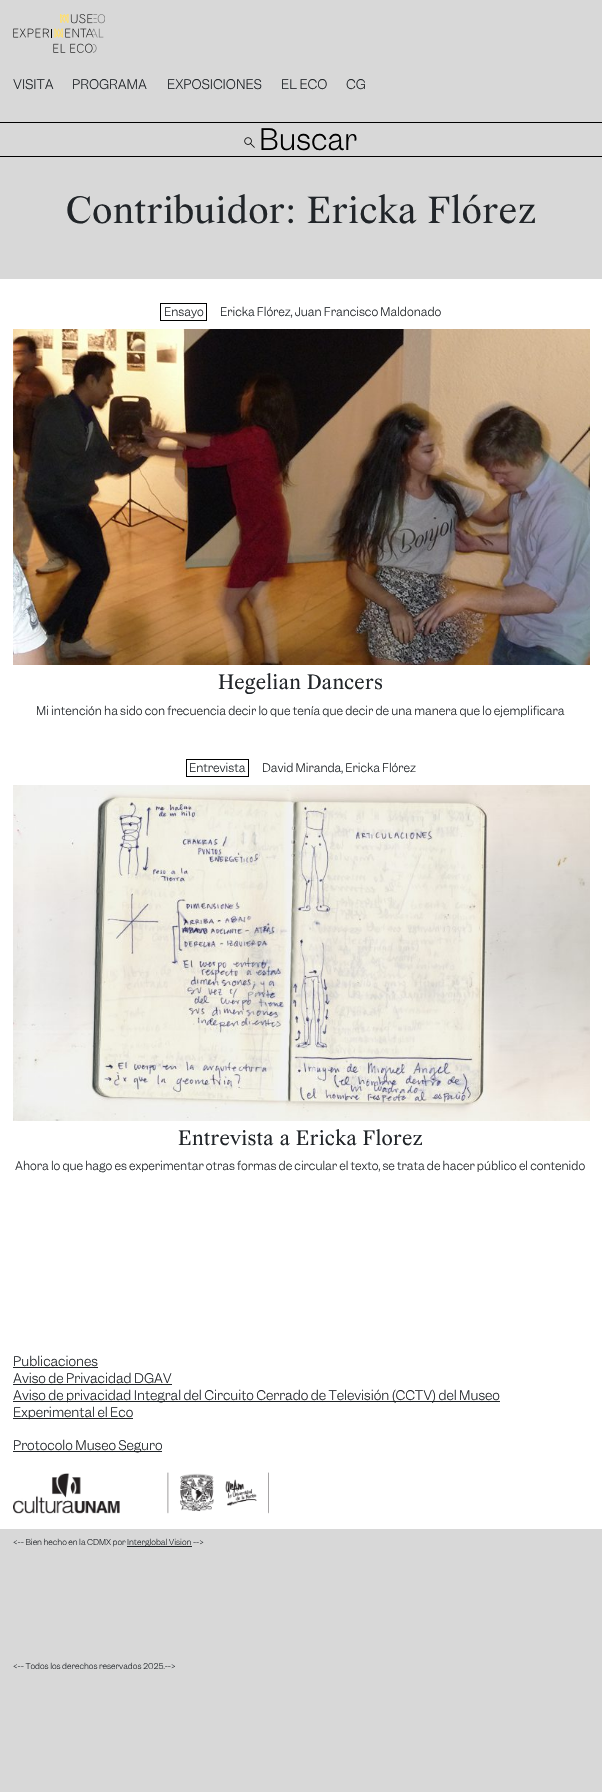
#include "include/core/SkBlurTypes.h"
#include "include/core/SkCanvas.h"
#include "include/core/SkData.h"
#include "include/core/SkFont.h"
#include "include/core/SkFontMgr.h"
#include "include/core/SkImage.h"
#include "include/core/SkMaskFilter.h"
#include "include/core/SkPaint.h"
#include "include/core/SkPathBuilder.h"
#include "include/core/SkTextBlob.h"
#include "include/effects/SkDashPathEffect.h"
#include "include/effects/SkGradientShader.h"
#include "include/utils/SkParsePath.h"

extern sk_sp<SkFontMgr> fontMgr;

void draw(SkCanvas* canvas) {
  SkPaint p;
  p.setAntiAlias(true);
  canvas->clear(SK_ColorWHITE);
  p.setColor(SkColorSetRGB(216, 216, 216));
  canvas->drawRect(SkRect::MakeLTRB(0, 0, 602, 156), p);
  p.setColor(SK_ColorBLACK);
  canvas->drawRect(SkRect::MakeLTRB(0, 122, 602, 123), p);
  canvas->drawImageRect(SkImages::DeferredFromEncodedData(SkData::MakeFromFileName("images/1.png")), SkRect::MakeLTRB(13, 13, 105, 53), SkSamplingOptions());
  canvas->drawRect(SkRect::MakeLTRB(0, 156, 602, 157), p);
  canvas->drawImageRect(SkImages::DeferredFromEncodedData(SkData::MakeFromFileName("images/2.png")), SkRect::MakeLTRB(244, 137, 255, 148), SkSamplingOptions());
  p.setColor(SkColorSetRGB(216, 216, 216));
  canvas->drawRect(SkRect::MakeLTRB(0, 157, 602, 279), p);
  p.setStyle(SkPaint::kStroke_Style);
  p.setStrokeWidth(1);
  p.setColor(SK_ColorBLACK);
  canvas->drawRect(SkRect::MakeLTRB(160.5f, 303.5f, 206.5f, 320.5f), p);
  canvas->drawImageRect(SkImages::DeferredFromEncodedData(SkData::MakeFromFileName("images/3.png")), SkRect::MakeLTRB(13, 329, 590, 665), SkSamplingOptions());
  canvas->drawRect(SkRect::MakeLTRB(186.5f, 759.5f, 248.5f, 776.5f), p);
  canvas->drawImageRect(SkImages::DeferredFromEncodedData(SkData::MakeFromFileName("images/4.png")), SkRect::MakeLTRB(13, 785, 590, 1121), SkSamplingOptions());
  p.setStyle(SkPaint::kFill_Style);
  p.setColor(SkColorSetRGB(33, 37, 41));
  canvas->drawRect(SkRect::MakeLTRB(13, 1367, 98, 1368), p);
  canvas->drawRect(SkRect::MakeLTRB(13, 1384, 172, 1385), p);
  canvas->drawRect(SkRect::MakeLTRB(13, 1401, 500, 1402), p);
  canvas->drawRect(SkRect::MakeLTRB(13, 1418, 133, 1419), p);
  canvas->drawRect(SkRect::MakeLTRB(13, 1451, 162, 1452), p);
  canvas->drawImageRect(SkImages::DeferredFromEncodedData(SkData::MakeFromFileName("images/5.png")), SkRect::MakeLTRB(13, 1472, 269, 1514), SkSamplingOptions());
  p.setColor(SkColorSetRGB(216, 216, 216));
  canvas->drawRect(SkRect::MakeLTRB(0, 1529, 602, 1792), p);
  p.setColor(SkColorSetRGB(33, 37, 41));
  canvas->drawRect(SkRect::MakeLTRB(127, 1546, 192, 1547), p);
  SkFont font1(fontMgr->matchFamilyStyle("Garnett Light", SkFontStyle(300, SkFontStyle::kNormal_Width, SkFontStyle::kUpright_Slant)), 12.6f);
  font1.setSubpixel(true);
  canvas->drawString("VISITA", 13, 89, font1, p);
  canvas->drawString("PROGRAMA", 72, 89, font1, p);
  canvas->drawString("EXPOSICIONES", 167, 89, font1, p);
  canvas->drawString("EL ECO", 281, 89, font1, p);
  canvas->drawString("CG", 346, 89, font1, p);
  SkFont font2(fontMgr->matchFamilyStyle("Garnett Light", SkFontStyle(300, SkFontStyle::kNormal_Width, SkFontStyle::kUpright_Slant)), 28);
  font2.setSubpixel(true);
  p.setColor(SK_ColorBLACK);
  canvas->drawString("Buscar", 259, 150, font2, p);
  SkFont font3(fontMgr->matchFamilyStyle("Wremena", SkFontStyle::Normal()), 40.5f);
  font3.setSubpixel(true);
  p.setColor(SkColorSetRGB(33, 37, 41));
  canvas->drawString("Contribuidor: Ericka Flórez", 66, 223, font3, p);
  SkFont font4(fontMgr->matchFamilyStyle("Garnett Light", SkFontStyle(300, SkFontStyle::kNormal_Width, SkFontStyle::kUpright_Slant)), 11.2f);
  font4.setSubpixel(true);
  canvas->drawString("Ensayo", 164, 316, font4, p);
  canvas->drawString("Ericka Flórez, Juan Francisco Maldonado", 220, 316, font4, p);
  SkFont font5(fontMgr->matchFamilyStyle("Wremena", SkFontStyle::Normal()), 22.4f);
  font5.setSubpixel(true);
  canvas->drawString("Hegelian Dancers", 218, 689, font5, p);
  canvas->drawString("Mi intención ha sido con frecuencia decir lo que tenía que decir de una manera que lo ejemplificara", 36, 715, font4, p);
  canvas->drawString("Entrevista", 189, 772, font4, p);
  canvas->drawString("David Miranda, Ericka Flórez", 262, 772, font4, p);
  canvas->drawString("Entrevista a Ericka Florez", 178, 1145, font5, p);
  canvas->drawString("Ahora lo que hago es experimentar otras formas de circular el texto, se trata de hacer público el contenido", 15, 1170, font4, p);
  canvas->drawString("Publicaciones", 13, 1366, font1, p);
  canvas->drawString("Aviso de Privacidad DGAV", 13, 1383, font1, p);
  canvas->drawString("Aviso de privacidad Integral del Circuito Cerrado de Televisión (CCTV) del Museo", 13, 1400, font1, p);
  canvas->drawString("Experimental el Eco", 13, 1417, font1, p);
  canvas->drawString("Protocolo Museo Seguro", 13, 1450, font1, p);
  SkFont font6(fontMgr->matchFamilyStyle("Garnett Light", SkFontStyle(300, SkFontStyle::kNormal_Width, SkFontStyle::kUpright_Slant)), 7.7f);
  font6.setSubpixel(true);
  canvas->drawString("<-- Bien hecho en la CDMX por", 13, 1545, font6, p);
  canvas->drawString("Interglobal Vision -->", 127, 1545, font6, p);
  canvas->drawString("<-- Todos los derechos reservados 2025.-->", 13, 1669, font6, p);
}
